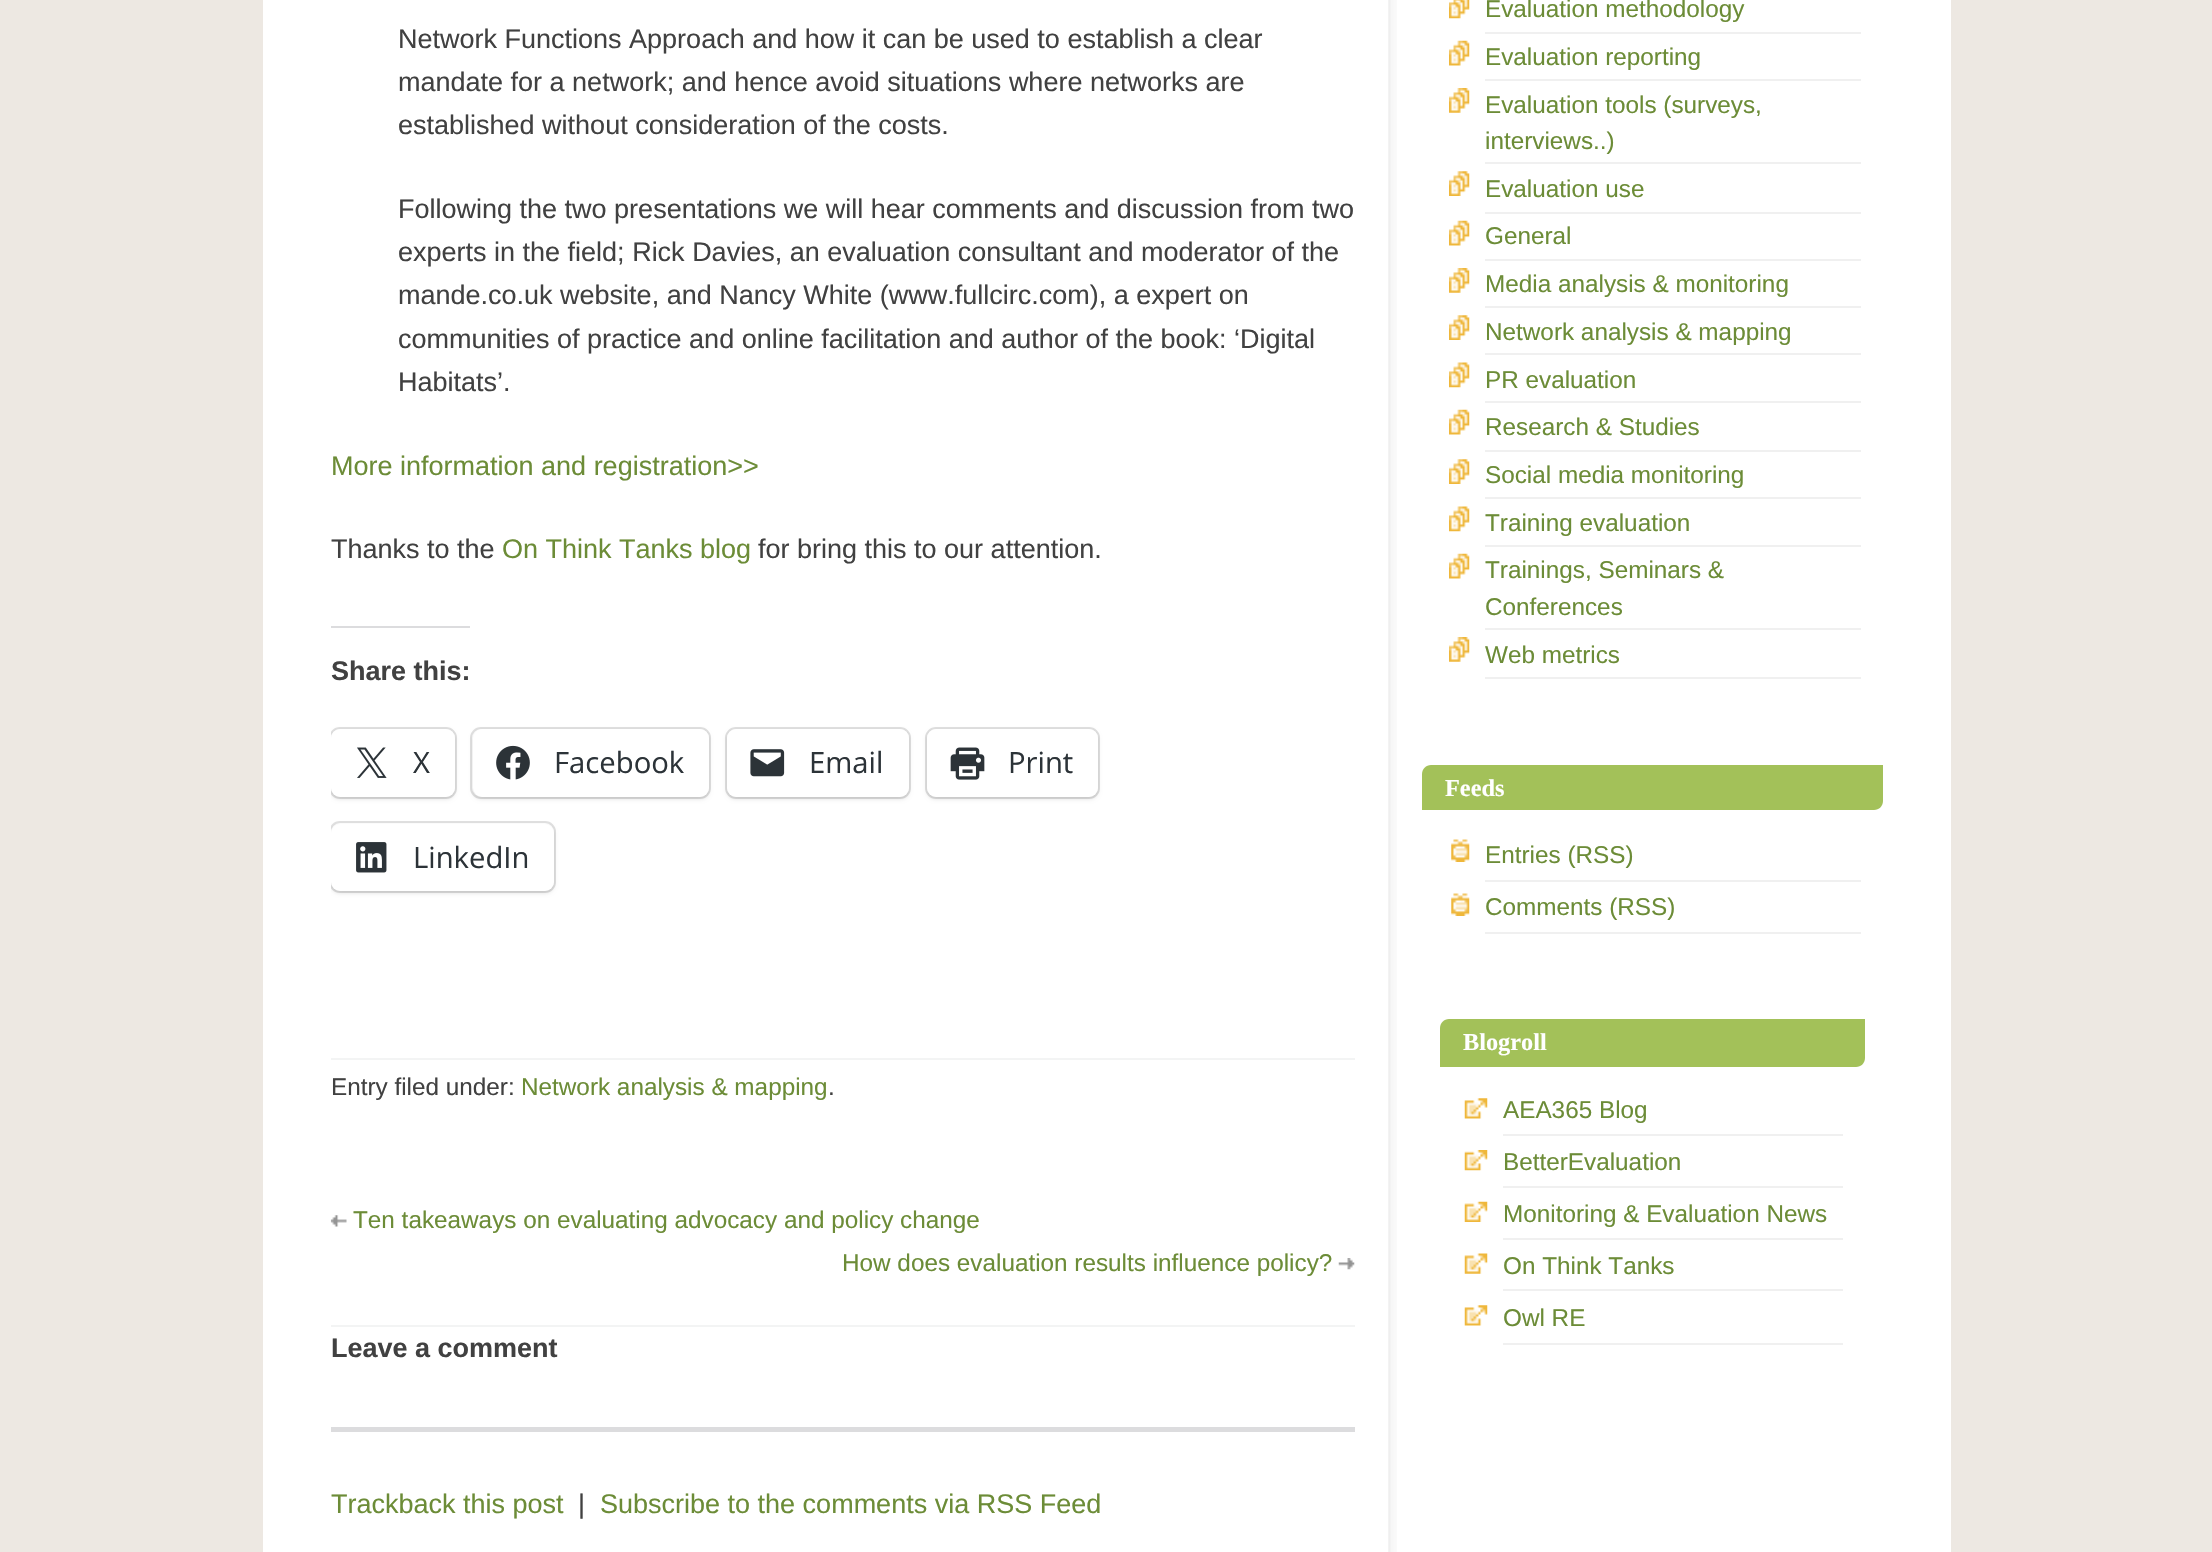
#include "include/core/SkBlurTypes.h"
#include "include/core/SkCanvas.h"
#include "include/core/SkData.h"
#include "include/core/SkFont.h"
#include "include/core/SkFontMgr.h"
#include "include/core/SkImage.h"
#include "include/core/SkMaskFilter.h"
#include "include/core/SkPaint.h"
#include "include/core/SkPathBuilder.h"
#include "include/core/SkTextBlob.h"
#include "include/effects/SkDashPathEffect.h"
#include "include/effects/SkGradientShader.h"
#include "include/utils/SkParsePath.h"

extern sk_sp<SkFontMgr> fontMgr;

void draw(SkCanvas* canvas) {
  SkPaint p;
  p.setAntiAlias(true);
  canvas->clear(SkColorSetRGB(237, 232, 226));
  p.setColor(SK_ColorWHITE);
  canvas->drawRect(SkRect::MakeLTRB(263, 0, 1951, 1552), p);
  canvas->drawImageRect(SkImages::DeferredFromEncodedData(SkData::MakeFromFileName("images/1.png")), SkRect::MakeLTRB(1388, 0, 1397, 1552), SkSamplingOptions());
  p.setColor(SkColorSetRGB(220, 220, 222));
  canvas->drawRect(SkRect::MakeLTRB(331, 626, 470, 628), p);
  canvas->save();
  canvas->clipRect(SkRect::MakeLTRB(331, 0, 1355, 1109));
  p.setStyle(SkPaint::kStroke_Style);
  p.setStrokeWidth(2);
  p.setColor(SkColorSetRGB(224, 224, 224));
  canvas->drawRoundRect(SkRect::MakeLTRB(330, 728, 456, 798), 10, 10, p);
  canvas->restore();
  canvas->save();
  canvas->clipRect(SkRect::MakeLTRB(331, 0, 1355, 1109));
  p.setStyle(SkPaint::kFill_Style);
  p.setColor(SkColorSetARGB(31, 0, 0, 0));
  p.setMaskFilter(SkMaskFilter::MakeBlur(kNormal_SkBlurStyle, 2));
  canvas->drawRoundRect(SkRect::MakeLTRB(331, 731, 455, 799), 9, 9, p);
  p.setMaskFilter(nullptr);
  canvas->restore();
  p.setColor(SK_ColorWHITE);
  canvas->drawRoundRect(SkRect::MakeLTRB(331, 729, 455, 797), 9, 9, p);
  canvas->drawImageRect(SkImages::DeferredFromEncodedData(SkData::MakeFromFileName("images/2.png")), SkRect::MakeLTRB(357, 747, 387, 778), SkSamplingOptions());
  p.setStyle(SkPaint::kStroke_Style);
  p.setColor(SkColorSetRGB(224, 224, 224));
  canvas->drawRoundRect(SkRect::MakeLTRB(471, 728, 710, 798), 10, 10, p);
  p.setStyle(SkPaint::kFill_Style);
  p.setColor(SkColorSetARGB(31, 0, 0, 0));
  p.setMaskFilter(SkMaskFilter::MakeBlur(kNormal_SkBlurStyle, 2));
  canvas->drawRoundRect(SkRect::MakeLTRB(473, 731, 709, 799), 9, 9, p);
  p.setMaskFilter(nullptr);
  p.setColor(SK_ColorWHITE);
  canvas->drawRoundRect(SkRect::MakeLTRB(473, 729, 709, 797), 9, 9, p);
  canvas->drawImageRect(SkImages::DeferredFromEncodedData(SkData::MakeFromFileName("images/3.png")), SkRect::MakeLTRB(496, 745, 530, 780), SkSamplingOptions());
  p.setStyle(SkPaint::kStroke_Style);
  p.setColor(SkColorSetRGB(224, 224, 224));
  canvas->drawRoundRect(SkRect::MakeLTRB(726, 728, 910, 798), 10, 10, p);
  p.setStyle(SkPaint::kFill_Style);
  p.setColor(SkColorSetARGB(31, 0, 0, 0));
  p.setMaskFilter(SkMaskFilter::MakeBlur(kNormal_SkBlurStyle, 2));
  canvas->drawRoundRect(SkRect::MakeLTRB(727, 731, 909, 799), 9, 9, p);
  p.setMaskFilter(nullptr);
  p.setColor(SK_ColorWHITE);
  canvas->drawRoundRect(SkRect::MakeLTRB(727, 729, 909, 797), 9, 9, p);
  canvas->drawImageRect(SkImages::DeferredFromEncodedData(SkData::MakeFromFileName("images/4.png")), SkRect::MakeLTRB(750, 749, 785, 777), SkSamplingOptions());
  p.setStyle(SkPaint::kStroke_Style);
  p.setColor(SkColorSetRGB(224, 224, 224));
  canvas->drawRoundRect(SkRect::MakeLTRB(926, 728, 1099, 798), 10, 10, p);
  p.setStyle(SkPaint::kFill_Style);
  p.setColor(SkColorSetARGB(31, 0, 0, 0));
  p.setMaskFilter(SkMaskFilter::MakeBlur(kNormal_SkBlurStyle, 2));
  canvas->drawRoundRect(SkRect::MakeLTRB(927, 731, 1098, 799), 9, 9, p);
  p.setMaskFilter(nullptr);
  p.setColor(SK_ColorWHITE);
  canvas->drawRoundRect(SkRect::MakeLTRB(927, 729, 1098, 797), 9, 9, p);
  canvas->drawImageRect(SkImages::DeferredFromEncodedData(SkData::MakeFromFileName("images/5.png")), SkRect::MakeLTRB(950, 747, 985, 780), SkSamplingOptions());
  canvas->save();
  canvas->clipRect(SkRect::MakeLTRB(331, 0, 1355, 1109));
  p.setStyle(SkPaint::kStroke_Style);
  p.setColor(SkColorSetRGB(224, 224, 224));
  canvas->drawRoundRect(SkRect::MakeLTRB(330, 822, 555, 892), 10, 10, p);
  canvas->restore();
  canvas->save();
  canvas->clipRect(SkRect::MakeLTRB(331, 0, 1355, 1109));
  p.setStyle(SkPaint::kFill_Style);
  p.setColor(SkColorSetARGB(31, 0, 0, 0));
  p.setMaskFilter(SkMaskFilter::MakeBlur(kNormal_SkBlurStyle, 2));
  canvas->drawRoundRect(SkRect::MakeLTRB(331, 826, 554, 893), 9, 9, p);
  p.setMaskFilter(nullptr);
  canvas->restore();
  p.setColor(SK_ColorWHITE);
  canvas->drawRoundRect(SkRect::MakeLTRB(331, 824, 554, 891), 9, 9, p);
  canvas->drawImageRect(SkImages::DeferredFromEncodedData(SkData::MakeFromFileName("images/6.png")), SkRect::MakeLTRB(356, 842, 387, 873), SkSamplingOptions());
  p.setColor(SkColorSetRGB(243, 244, 244));
  canvas->drawRect(SkRect::MakeLTRB(331, 1058, 1355, 1060), p);
  canvas->drawRect(SkRect::MakeLTRB(331, 1325, 1355, 1327), p);
  canvas->drawImageRect(SkImages::DeferredFromEncodedData(SkData::MakeFromFileName("images/7.png")), SkRect::MakeLTRB(330, 1215, 347, 1227), SkSamplingOptions());
  canvas->drawImageRect(SkImages::DeferredFromEncodedData(SkData::MakeFromFileName("images/8.png")), SkRect::MakeLTRB(1338, 1258, 1355, 1270), SkSamplingOptions());
  p.setColor(SkColorSetRGB(220, 220, 222));
  canvas->drawRect(SkRect::MakeLTRB(331, 1427, 1355, 1432), p);
  p.setColor(SkColorSetRGB(240, 240, 240));
  canvas->drawRect(SkRect::MakeLTRB(1485, 32, 1861, 34), p);
  canvas->drawImageRect(SkImages::DeferredFromEncodedData(SkData::MakeFromFileName("images/9.png")), SkRect::MakeLTRB(1449, 0, 1470, 19), SkSamplingOptions());
  canvas->drawRect(SkRect::MakeLTRB(1485, 79, 1861, 81), p);
  canvas->drawImageRect(SkImages::DeferredFromEncodedData(SkData::MakeFromFileName("images/10.png")), SkRect::MakeLTRB(1449, 40, 1470, 66), SkSamplingOptions());
  canvas->drawRect(SkRect::MakeLTRB(1485, 162, 1861, 164), p);
  canvas->drawImageRect(SkImages::DeferredFromEncodedData(SkData::MakeFromFileName("images/11.png")), SkRect::MakeLTRB(1449, 88, 1470, 113), SkSamplingOptions());
  canvas->drawRect(SkRect::MakeLTRB(1485, 212, 1861, 214), p);
  canvas->drawImageRect(SkImages::DeferredFromEncodedData(SkData::MakeFromFileName("images/12.png")), SkRect::MakeLTRB(1449, 171, 1470, 196), SkSamplingOptions());
  canvas->drawRect(SkRect::MakeLTRB(1485, 259, 1861, 261), p);
  canvas->drawImageRect(SkImages::DeferredFromEncodedData(SkData::MakeFromFileName("images/13.png")), SkRect::MakeLTRB(1449, 220, 1470, 246), SkSamplingOptions());
  canvas->drawRect(SkRect::MakeLTRB(1485, 306, 1861, 308), p);
  canvas->drawImageRect(SkImages::DeferredFromEncodedData(SkData::MakeFromFileName("images/11.png")), SkRect::MakeLTRB(1449, 268, 1470, 293), SkSamplingOptions());
  canvas->drawRect(SkRect::MakeLTRB(1485, 353, 1861, 355), p);
  canvas->drawImageRect(SkImages::DeferredFromEncodedData(SkData::MakeFromFileName("images/12.png")), SkRect::MakeLTRB(1449, 315, 1470, 340), SkSamplingOptions());
  canvas->drawRect(SkRect::MakeLTRB(1485, 401, 1861, 403), p);
  canvas->drawImageRect(SkImages::DeferredFromEncodedData(SkData::MakeFromFileName("images/14.png")), SkRect::MakeLTRB(1449, 362, 1470, 388), SkSamplingOptions());
  canvas->drawRect(SkRect::MakeLTRB(1485, 450, 1861, 452), p);
  canvas->drawImageRect(SkImages::DeferredFromEncodedData(SkData::MakeFromFileName("images/13.png")), SkRect::MakeLTRB(1449, 409, 1470, 435), SkSamplingOptions());
  canvas->drawRect(SkRect::MakeLTRB(1485, 497, 1861, 499), p);
  canvas->drawImageRect(SkImages::DeferredFromEncodedData(SkData::MakeFromFileName("images/12.png")), SkRect::MakeLTRB(1449, 459, 1470, 484), SkSamplingOptions());
  canvas->drawRect(SkRect::MakeLTRB(1485, 545, 1861, 547), p);
  canvas->drawImageRect(SkImages::DeferredFromEncodedData(SkData::MakeFromFileName("images/14.png")), SkRect::MakeLTRB(1449, 506, 1470, 532), SkSamplingOptions());
  canvas->drawRect(SkRect::MakeLTRB(1485, 628, 1861, 630), p);
  canvas->drawImageRect(SkImages::DeferredFromEncodedData(SkData::MakeFromFileName("images/13.png")), SkRect::MakeLTRB(1449, 553, 1470, 579), SkSamplingOptions());
  canvas->drawRect(SkRect::MakeLTRB(1485, 677, 1861, 679), p);
  canvas->drawImageRect(SkImages::DeferredFromEncodedData(SkData::MakeFromFileName("images/11.png")), SkRect::MakeLTRB(1449, 637, 1470, 662), SkSamplingOptions());
  p.setColor(SkColorSetRGB(163, 193, 89));
  canvas->drawPath(SkPathBuilder().moveTo(1431, 765).lineTo(1883, 765).lineTo(1883, 801).cubicTo(1883, 806, 1879, 810, 1874, 810).lineTo(1422, 810).lineTo(1422, 774).cubicTo(1422, 769, 1426, 765, 1431, 765).close().detach(), p);
  p.setColor(SkColorSetRGB(240, 240, 240));
  canvas->drawRect(SkRect::MakeLTRB(1485, 880, 1861, 882), p);
  canvas->drawImageRect(SkImages::DeferredFromEncodedData(SkData::MakeFromFileName("images/15.png")), SkRect::MakeLTRB(1451, 839, 1470, 862), SkSamplingOptions());
  canvas->drawRect(SkRect::MakeLTRB(1485, 932, 1861, 934), p);
  canvas->drawImageRect(SkImages::DeferredFromEncodedData(SkData::MakeFromFileName("images/15.png")), SkRect::MakeLTRB(1451, 893, 1470, 916), SkSamplingOptions());
  p.setColor(SkColorSetRGB(163, 193, 89));
  canvas->drawPath(SkPathBuilder().moveTo(1449, 1019).lineTo(1865, 1019).lineTo(1865, 1058).cubicTo(1865, 1063, 1861, 1067, 1856, 1067).lineTo(1440, 1067).lineTo(1440, 1028).cubicTo(1440, 1023, 1444, 1019, 1449, 1019).close().detach(), p);
  p.setColor(SkColorSetRGB(240, 240, 240));
  canvas->drawRect(SkRect::MakeLTRB(1503, 1134, 1843, 1136), p);
  canvas->drawImageRect(SkImages::DeferredFromEncodedData(SkData::MakeFromFileName("images/16.png")), SkRect::MakeLTRB(1464, 1098, 1488, 1119), SkSamplingOptions());
  canvas->drawRect(SkRect::MakeLTRB(1503, 1186, 1843, 1188), p);
  canvas->drawImageRect(SkImages::DeferredFromEncodedData(SkData::MakeFromFileName("images/17.png")), SkRect::MakeLTRB(1464, 1150, 1488, 1171), SkSamplingOptions());
  canvas->drawRect(SkRect::MakeLTRB(1503, 1238, 1843, 1240), p);
  canvas->drawImageRect(SkImages::DeferredFromEncodedData(SkData::MakeFromFileName("images/18.png")), SkRect::MakeLTRB(1464, 1201, 1488, 1222), SkSamplingOptions());
  canvas->drawRect(SkRect::MakeLTRB(1503, 1289, 1843, 1291), p);
  canvas->drawImageRect(SkImages::DeferredFromEncodedData(SkData::MakeFromFileName("images/19.png")), SkRect::MakeLTRB(1464, 1253, 1488, 1274), SkSamplingOptions());
  canvas->drawRect(SkRect::MakeLTRB(1503, 1343, 1843, 1345), p);
  canvas->drawImageRect(SkImages::DeferredFromEncodedData(SkData::MakeFromFileName("images/16.png")), SkRect::MakeLTRB(1464, 1305, 1488, 1326), SkSamplingOptions());
  SkFont font1(fontMgr->matchFamilyStyle("Liberation Sans", SkFontStyle::Normal()), 27);
  font1.setSubpixel(true);
  p.setColor(SkColorSetRGB(65, 65, 65));
  canvas->drawString("Network Functions Approach and how it can be used to establish a clear", 398, 48, font1, p);
  canvas->drawString("mandate for a network; and hence avoid situations where networks are", 398, 91, font1, p);
  canvas->drawString("established without consideration of the costs.", 398, 134, font1, p);
  canvas->drawString("Following the two presentations we will hear comments and discussion from two", 398, 218, font1, p);
  canvas->drawString("experts in the field; Rick Davies, an evaluation consultant and moderator of the", 398, 261, font1, p);
  canvas->drawString("mande.co.uk website, and Nancy White (www.fullcirc.com), a expert on", 398, 304, font1, p);
  canvas->drawString("communities of practice and online facilitation and author of the book: ‘Digital", 398, 348, font1, p);
  canvas->drawString("Habitats’.", 398, 391, font1, p);
  p.setColor(SkColorSetRGB(108, 140, 55));
  canvas->drawString("More information and registration>>", 331, 475, font1, p);
  p.setColor(SkColorSetRGB(65, 65, 65));
  canvas->drawString("Thanks to the", 331, 558, font1, p);
  p.setColor(SkColorSetRGB(108, 140, 55));
  canvas->drawString("On Think Tanks blog", 502, 558, font1, p);
  p.setColor(SkColorSetRGB(65, 65, 65));
  canvas->drawString("for bring this to our attention.", 758, 558, font1, p);
  SkFont font2(fontMgr->matchFamilyStyle("Liberation Sans", SkFontStyle::Bold()), 27);
  font2.setSubpixel(true);
  canvas->drawString("Share this:", 331, 680, font2, p);
  SkFont font3(fontMgr->matchFamilyStyle("Open Sans", SkFontStyle::Normal()), 29.25f);
  font3.setSubpixel(true);
  p.setColor(SkColorSetRGB(44, 51, 56));
  canvas->drawString("X", 413, 773, font3, p);
  canvas->drawString("Facebook", 554, 773, font3, p);
  canvas->drawString("Email", 809, 773, font3, p);
  canvas->drawString("Print", 1008, 773, font3, p);
  canvas->drawString("LinkedIn", 413, 868, font3, p);
  SkFont font4(fontMgr->matchFamilyStyle("Liberation Sans", SkFontStyle::Normal()), 24.3f);
  font4.setSubpixel(true);
  p.setColor(SkColorSetRGB(65, 65, 65));
  canvas->drawString("Entry filed under:", 331, 1095, font4, p);
  p.setColor(SkColorSetRGB(108, 140, 55));
  canvas->drawString("Network analysis & mapping", 521, 1095, font4, p);
  p.setColor(SkColorSetRGB(65, 65, 65));
  canvas->drawString(".", 828, 1095, font4, p);
  p.setColor(SkColorSetRGB(108, 140, 55));
  canvas->drawString("Ten takeaways on evaluating advocacy and policy change", 353, 1228, font4, p);
  canvas->drawString("How does evaluation results influence policy?", 842, 1271, font4, p);
  p.setColor(SkColorSetRGB(65, 65, 65));
  canvas->drawString("Leave a comment", 331, 1357, font2, p);
  p.setColor(SkColorSetRGB(108, 140, 55));
  canvas->drawString("Trackback this post", 331, 1513, font1, p);
  p.setColor(SkColorSetRGB(65, 65, 65));
  canvas->drawString("|", 578, 1513, font1, p);
  p.setColor(SkColorSetRGB(108, 140, 55));
  canvas->drawString("Subscribe to the comments via RSS Feed", 600, 1513, font1, p);
  canvas->drawString("Evaluation methodology", 1485, 17, font4, p);
  canvas->drawString("Evaluation reporting", 1485, 65, font4, p);
  canvas->drawString("Evaluation tools (surveys,", 1485, 113, font4, p);
  canvas->drawString("interviews..)", 1485, 149, font4, p);
  canvas->drawString("Evaluation use", 1485, 197, font4, p);
  canvas->drawString("General", 1485, 244, font4, p);
  canvas->drawString("Media analysis & monitoring", 1485, 292, font4, p);
  canvas->drawString("Network analysis & mapping", 1485, 340, font4, p);
  canvas->drawString("PR evaluation", 1485, 388, font4, p);
  canvas->drawString("Research & Studies", 1485, 435, font4, p);
  canvas->drawString("Social media monitoring", 1485, 483, font4, p);
  canvas->drawString("Training evaluation", 1485, 531, font4, p);
  canvas->drawString("Trainings, Seminars &", 1485, 578, font4, p);
  canvas->drawString("Conferences", 1485, 615, font4, p);
  canvas->drawString("Web metrics", 1485, 663, font4, p);
  SkFont font5(fontMgr->matchFamilyStyle("Liberation Serif", SkFontStyle::Bold()), 24.3f);
  font5.setSubpixel(true);
  p.setColor(SK_ColorWHITE);
  canvas->drawString("Feeds", 1445, 796, font5, p);
  p.setColor(SkColorSetRGB(108, 140, 55));
  canvas->drawString("Entries (RSS)", 1485, 863, font4, p);
  canvas->drawString("Comments (RSS)", 1485, 915, font4, p);
  p.setColor(SK_ColorWHITE);
  canvas->drawString("Blogroll", 1463, 1050, font5, p);
  p.setColor(SkColorSetRGB(108, 140, 55));
  canvas->drawString("AEA365 Blog", 1503, 1118, font4, p);
  canvas->drawString("BetterEvaluation", 1503, 1170, font4, p);
  canvas->drawString("Monitoring & Evaluation News", 1503, 1222, font4, p);
  canvas->drawString("On Think Tanks", 1503, 1274, font4, p);
  canvas->drawString("Owl RE", 1503, 1326, font4, p);
}
